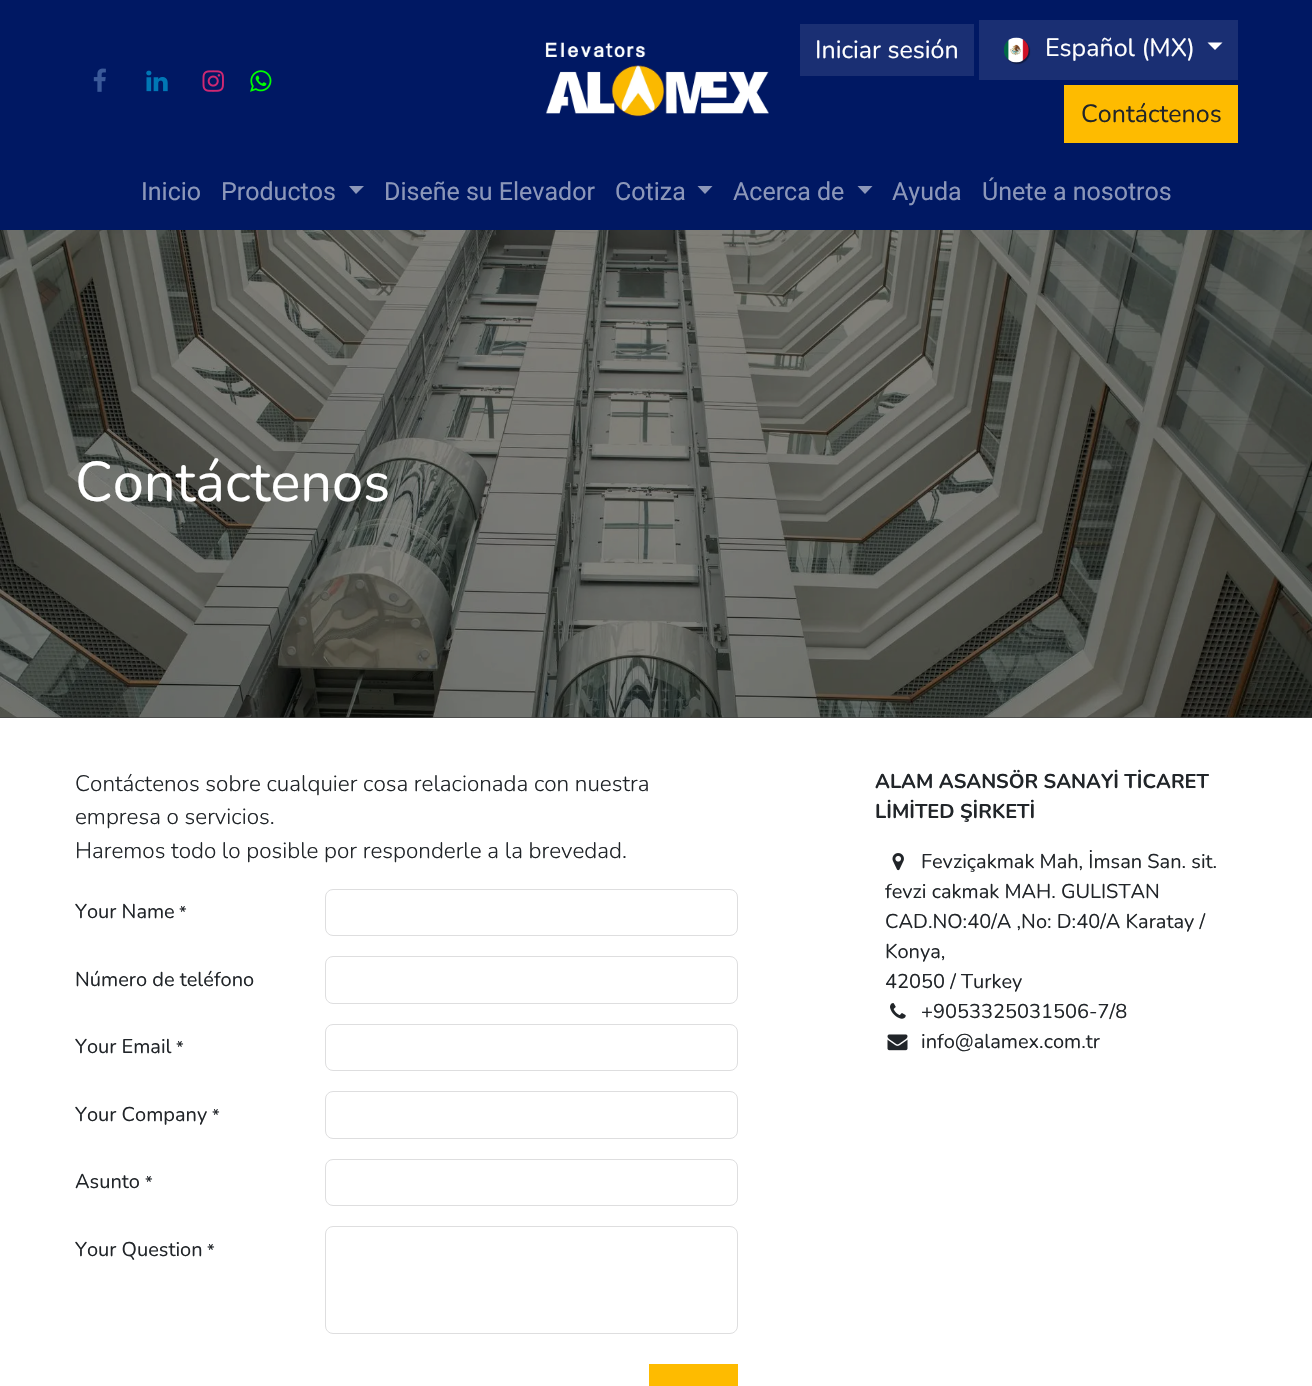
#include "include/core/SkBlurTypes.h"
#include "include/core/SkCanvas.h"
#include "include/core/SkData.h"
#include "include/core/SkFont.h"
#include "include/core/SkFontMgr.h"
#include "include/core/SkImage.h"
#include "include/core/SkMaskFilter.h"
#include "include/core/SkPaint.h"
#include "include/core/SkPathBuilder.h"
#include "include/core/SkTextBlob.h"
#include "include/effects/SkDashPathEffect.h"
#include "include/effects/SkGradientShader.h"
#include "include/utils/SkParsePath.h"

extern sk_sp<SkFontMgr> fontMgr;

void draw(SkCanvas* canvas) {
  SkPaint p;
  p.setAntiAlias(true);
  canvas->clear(SK_ColorWHITE);
  p.setColor(SkColorSetRGB(0, 24, 99));
  canvas->drawRect(SkRect::MakeLTRB(0, 0, 1312, 230), p);
  canvas->drawImageRect(SkImages::DeferredFromEncodedData(SkData::MakeFromFileName("images/1.png")), SkRect::MakeLTRB(93, 68, 106, 92), SkSamplingOptions());
  canvas->drawImageRect(SkImages::DeferredFromEncodedData(SkData::MakeFromFileName("images/2.png")), SkRect::MakeLTRB(146, 70, 168, 92), SkSamplingOptions());
  canvas->drawImageRect(SkImages::DeferredFromEncodedData(SkData::MakeFromFileName("images/3.png")), SkRect::MakeLTRB(202, 70, 224, 92), SkSamplingOptions());
  canvas->drawImageRect(SkImages::DeferredFromEncodedData(SkData::MakeFromFileName("images/4.png")), SkRect::MakeLTRB(250, 70, 272, 92), SkSamplingOptions());
  canvas->drawImageRect(SkImages::DeferredFromEncodedData(SkData::MakeFromFileName("images/5.png")), SkRect::MakeLTRB(545, 42, 769, 117), SkSamplingOptions());
  p.setColor(SkColorSetRGB(26, 47, 115));
  canvas->drawRect(SkRect::MakeLTRB(800, 24, 974, 76), p);
  canvas->drawRect(SkRect::MakeLTRB(979, 20, 1238, 80), p);
  p.setColor(SkColorSetARGB(110, 0, 0, 0));
  p.setMaskFilter(SkMaskFilter::MakeBlur(kNormal_SkBlurStyle, 0.5f));
  canvas->drawRoundRect(SkRect::MakeLTRB(1005, 39, 1030, 64), 12.5f, 12.5f, p);
  p.setMaskFilter(nullptr);
  canvas->drawImageRect(SkImages::DeferredFromEncodedData(SkData::MakeFromFileName("images/6.png")), SkRect::MakeLTRB(1004, 37, 1029, 63), SkSamplingOptions());
  p.setColor(SK_ColorWHITE);
  canvas->drawPath(SkPathBuilder().moveTo(1207.5f, 42.5f).lineTo(1222.5f, 42.5f).lineTo(1215, 50).close().detach(), p);
  p.setColor(SkColorSetRGB(254, 187, 0));
  canvas->drawRect(SkRect::MakeLTRB(1064, 85, 1238, 143), p);
  p.setColor(SkColorSetRGB(140, 151, 185));
  canvas->drawPath(SkPathBuilder().moveTo(349, 186).lineTo(364, 186).lineTo(356, 194).close().detach(), p);
  canvas->drawPath(SkPathBuilder().moveTo(697.5f, 186).lineTo(712.5f, 186).lineTo(705, 194).close().detach(), p);
  canvas->drawPath(SkPathBuilder().moveTo(857.5f, 186).lineTo(872.5f, 186).lineTo(865, 194).close().detach(), p);
  p.setColor(SkColorSetRGB(64, 64, 64));
  canvas->drawRect(SkRect::MakeLTRB(0, 717, 1312, 718), p);
  canvas->drawImageRect(SkImages::DeferredFromEncodedData(SkData::MakeFromFileName("images/7.png")), SkRect::MakeLTRB(0, 230, 1312, 718), SkSamplingOptions());
  p.setStyle(SkPaint::kStroke_Style);
  p.setStrokeWidth(1);
  p.setColor(SkColorSetRGB(222, 222, 223));
  canvas->drawRoundRect(SkRect::MakeLTRB(325.5f, 889.5f, 737.5f, 935.5f), 7.5f, 7.5f, p);
  canvas->drawRoundRect(SkRect::MakeLTRB(325.5f, 956.5f, 737.5f, 1003.5f), 7.5f, 7.5f, p);
  canvas->drawRoundRect(SkRect::MakeLTRB(325.5f, 1024.5f, 737.5f, 1070.5f), 7.5f, 7.5f, p);
  canvas->drawRoundRect(SkRect::MakeLTRB(325.5f, 1091.5f, 737.5f, 1138.5f), 7.5f, 7.5f, p);
  canvas->drawRoundRect(SkRect::MakeLTRB(325.5f, 1159.5f, 737.5f, 1205.5f), 7.5f, 7.5f, p);
  canvas->drawRoundRect(SkRect::MakeLTRB(325.5f, 1226.5f, 737.5f, 1333.5f), 7.5f, 7.5f, p);
  p.setStyle(SkPaint::kFill_Style);
  p.setColor(SkColorSetRGB(254, 187, 0));
  canvas->drawRect(SkRect::MakeLTRB(649, 1364, 738, 1386), p);
  canvas->drawImageRect(SkImages::DeferredFromEncodedData(SkData::MakeFromFileName("images/8.png")), SkRect::MakeLTRB(892, 853, 904, 871), SkSamplingOptions());
  canvas->drawImageRect(SkImages::DeferredFromEncodedData(SkData::MakeFromFileName("images/9.png")), SkRect::MakeLTRB(890, 1003, 906, 1019), SkSamplingOptions());
  canvas->drawImageRect(SkImages::DeferredFromEncodedData(SkData::MakeFromFileName("images/10.png")), SkRect::MakeLTRB(887, 1034, 908, 1051), SkSamplingOptions());
  SkFont font1(fontMgr->matchFamilyStyle("Nunito", SkFontStyle::Normal()), 25);
  font1.setSubpixel(true);
  p.setColor(SK_ColorWHITE);
  canvas->drawString("Iniciar sesión", 815, 58, font1, p);
  canvas->drawString("Español (MX)", 1045, 56, font1, p);
  p.setColor(SkColorSetRGB(33, 37, 41));
  canvas->drawString("Contáctenos", 1081, 122, font1, p);
  SkFont font2(fontMgr->matchFamilyStyle("Roboto", SkFontStyle::Normal()), 25);
  font2.setSubpixel(true);
  p.setColor(SkColorSetRGB(140, 151, 185));
  canvas->drawString("Inicio", 141, 200, font2, p);
  canvas->drawString("Productos", 221, 200, font2, p);
  canvas->drawString("Diseñe su Elevador", 384, 200, font2, p);
  canvas->drawString("Cotiza", 615, 200, font2, p);
  canvas->drawString("Acerca de", 733, 200, font2, p);
  canvas->drawString("Ayuda", 892, 200, font2, p);
  canvas->drawString("Únete a nosotros", 982, 200, font2, p);
  SkFont font3(fontMgr->matchFamilyStyle("Nunito", SkFontStyle::Normal()), 56);
  font3.setSubpixel(true);
  p.setColor(SK_ColorWHITE);
  canvas->drawString("Contáctenos", 75, 501, font3, p);
  SkFont font4(fontMgr->matchFamilyStyle("Nunito", SkFontStyle(300, SkFontStyle::kNormal_Width, SkFontStyle::kUpright_Slant)), 22.5f);
  font4.setSubpixel(true);
  p.setColor(SkColorSetRGB(33, 37, 41));
  canvas->drawString("Contáctenos sobre cualquier cosa relacionada con nuestra", 75, 791, font4, p);
  canvas->drawString("empresa o servicios.", 75, 824, font4, p);
  canvas->drawString("Haremos todo lo posible por responderle a la brevedad.", 75, 858, font4, p);
  SkFont font5(fontMgr->matchFamilyStyle("Nunito", SkFontStyle::Normal()), 20);
  font5.setSubpixel(true);
  canvas->drawString("Your Name", 75, 918, font5, p);
  SkFont font6(fontMgr->matchFamilyStyle("Nunito", SkFontStyle::Normal()), 17);
  font6.setSubpixel(true);
  canvas->drawString("*", 179, 918, font6, p);
  canvas->drawString("Número de teléfono", 75, 986, font5, p);
  canvas->drawString("Your Email", 75, 1053, font5, p);
  canvas->drawString("*", 176, 1053, font6, p);
  canvas->drawString("Your Company", 75, 1121, font5, p);
  canvas->drawString("*", 212, 1121, font6, p);
  canvas->drawString("Asunto", 75, 1188, font5, p);
  canvas->drawString("*", 145, 1188, font6, p);
  canvas->drawString("Your Question", 75, 1256, font5, p);
  canvas->drawString("*", 207, 1256, font6, p);
  SkFont font7(fontMgr->matchFamilyStyle("Nunito", SkFontStyle::Bold()), 20);
  font7.setSubpixel(true);
  canvas->drawString("ALAM ASANSÖR SANAYİ TİCARET", 875, 788, font7, p);
  canvas->drawString("LİMİTED ŞİRKETİ", 875, 818, font7, p);
  canvas->drawString("Fevziçakmak Mah, İmsan San. sit.", 921, 868, font5, p);
  canvas->drawString("fevzi cakmak MAH. GULISTAN", 885, 898, font5, p);
  canvas->drawString("CAD.NO:40/A ,No: D:40/A Karatay /", 885, 928, font5, p);
  canvas->drawString("Konya,", 885, 958, font5, p);
  canvas->drawString("42050 / Turkey", 885, 988, font5, p);
  canvas->drawString("+9053325031506-7/8", 921, 1018, font5, p);
  canvas->drawString("info@alamex.com.tr", 921, 1048, font5, p);
}
